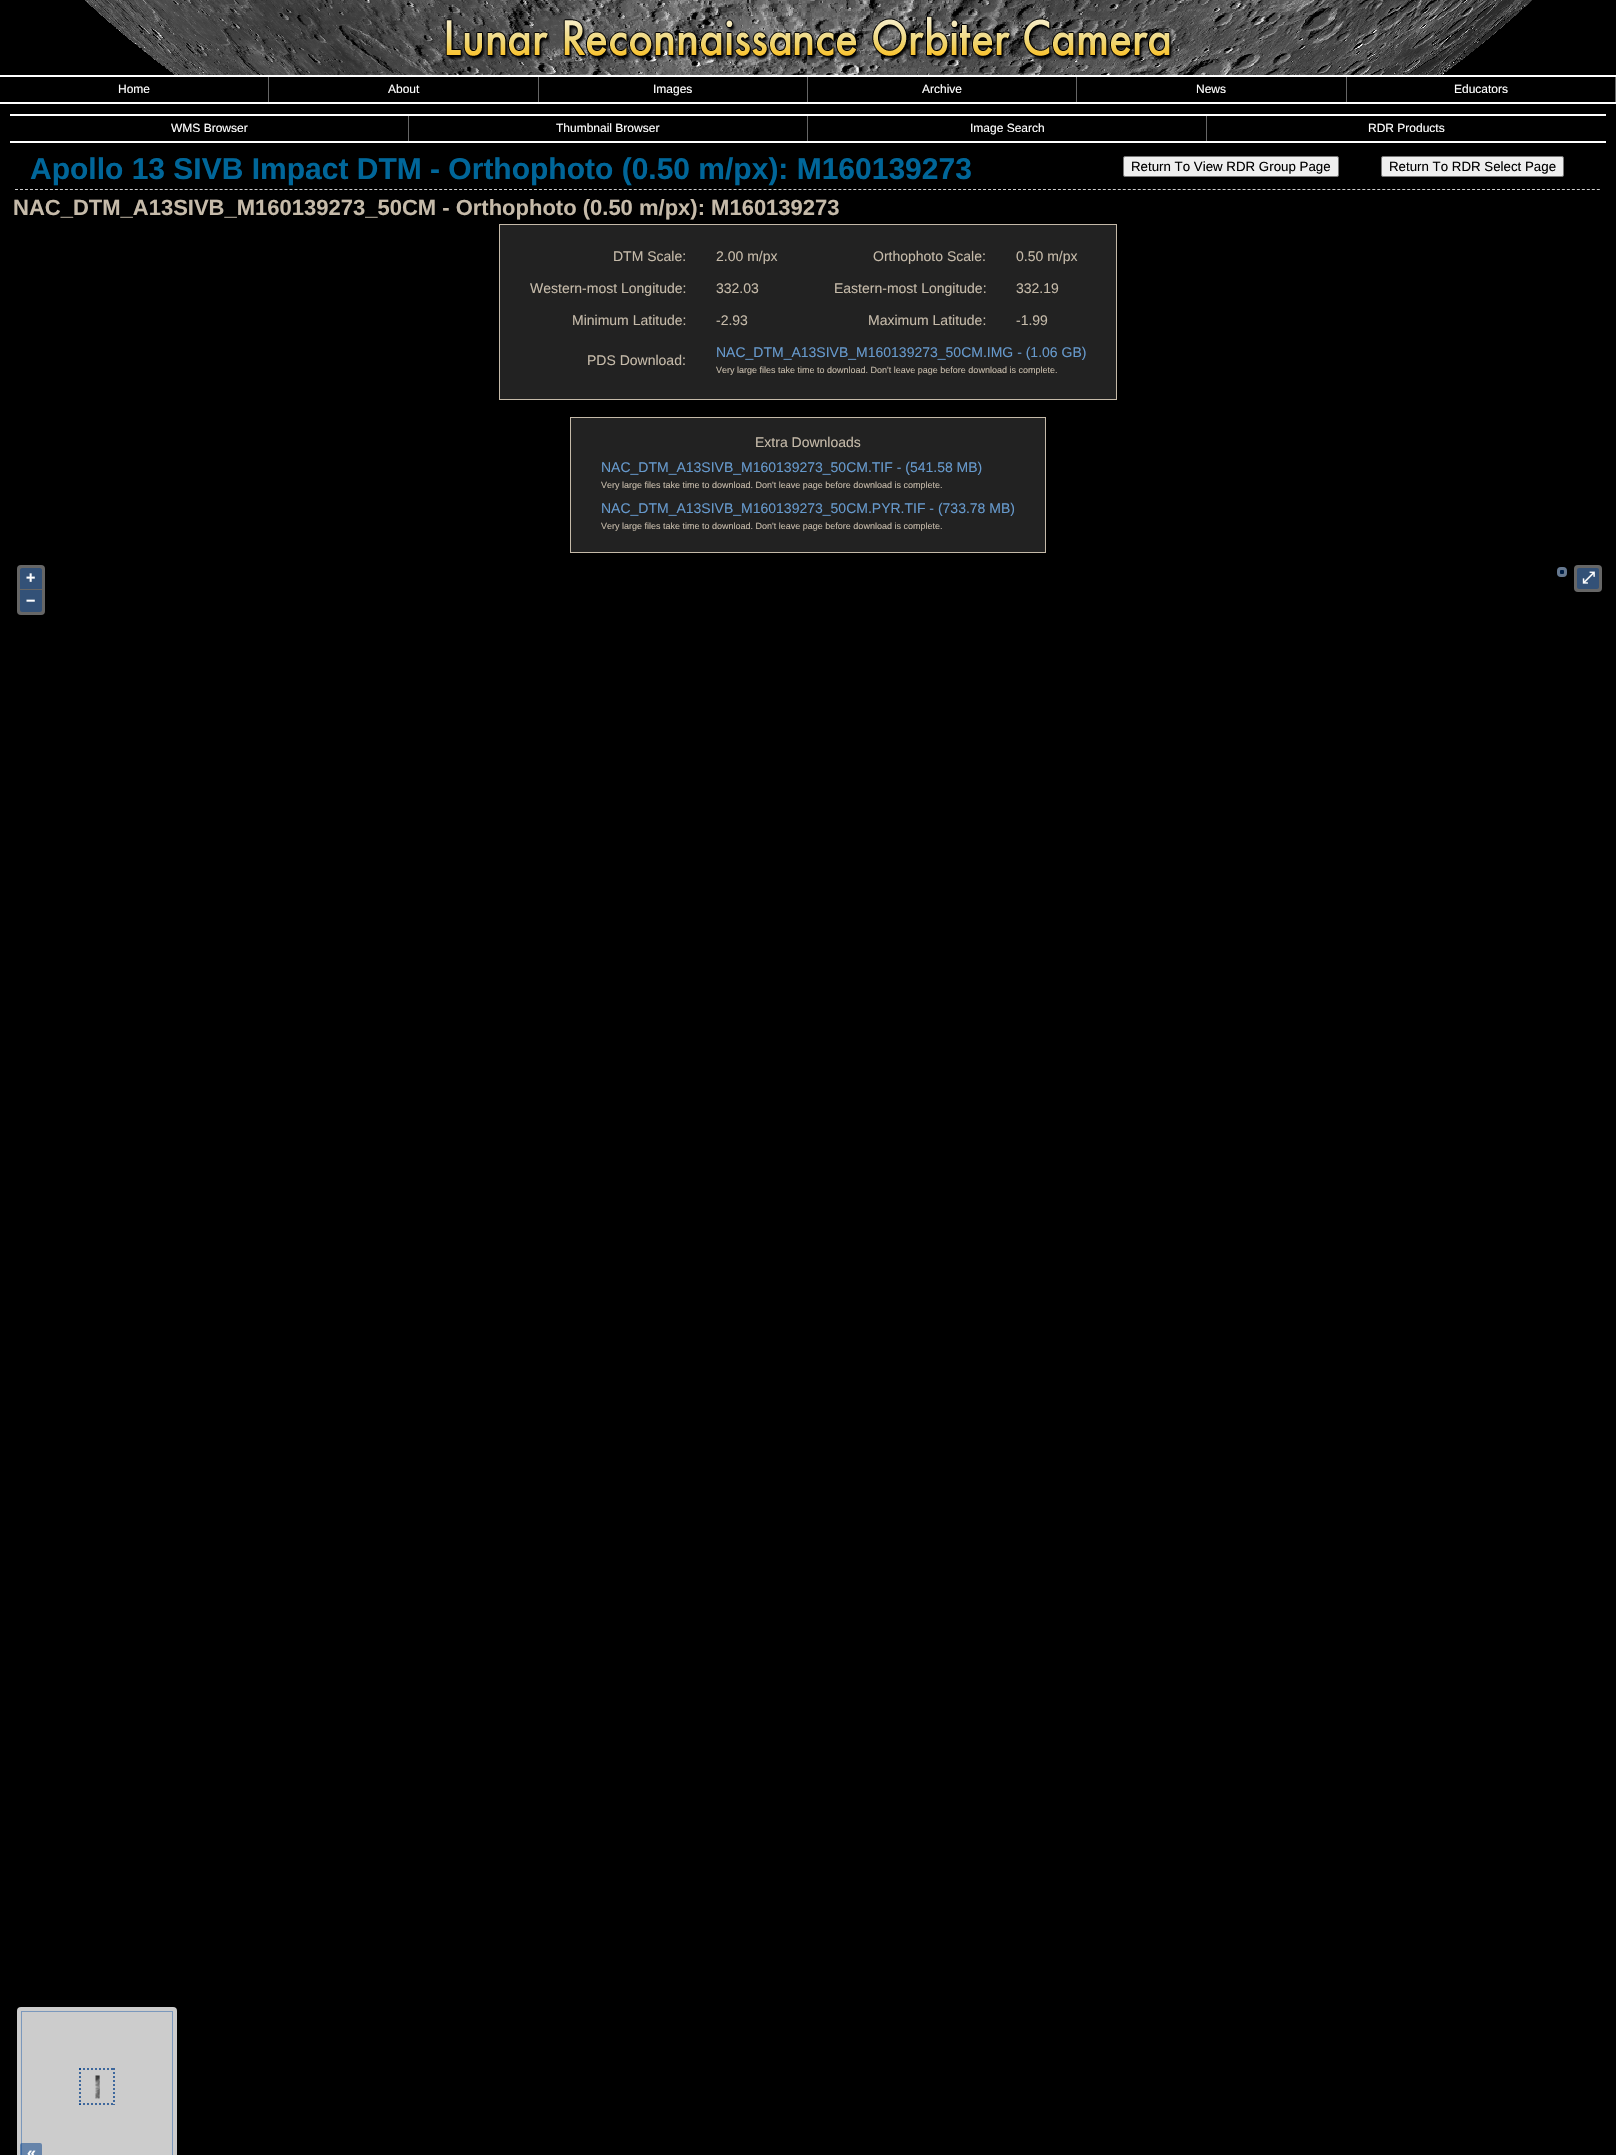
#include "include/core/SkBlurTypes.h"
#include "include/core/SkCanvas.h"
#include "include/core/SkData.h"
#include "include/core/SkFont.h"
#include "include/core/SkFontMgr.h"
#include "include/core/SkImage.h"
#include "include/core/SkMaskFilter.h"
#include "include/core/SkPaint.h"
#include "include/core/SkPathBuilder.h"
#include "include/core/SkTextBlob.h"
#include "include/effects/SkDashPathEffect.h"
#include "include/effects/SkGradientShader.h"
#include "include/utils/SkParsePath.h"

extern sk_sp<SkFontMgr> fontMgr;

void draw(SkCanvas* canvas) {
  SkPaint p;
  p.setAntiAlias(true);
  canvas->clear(SK_ColorBLACK);
  canvas->drawImageRect(SkImages::DeferredFromEncodedData(SkData::MakeFromFileName("images/1.png")), SkRect::MakeLTRB(85, 0, 1532, 75), SkSamplingOptions());
  canvas->drawImageRect(SkImages::DeferredFromEncodedData(SkData::MakeFromFileName("images/2.png")), SkRect::MakeLTRB(445, 15, 1173, 61), SkSamplingOptions());
  p.setColor(SK_ColorWHITE);
  canvas->drawRect(SkRect::MakeLTRB(0, 75, 1616, 77), p);
  canvas->drawRect(SkRect::MakeLTRB(0, 102, 1616, 104), p);
  p.setColor(SkColorSetRGB(102, 102, 102));
  canvas->drawRect(SkRect::MakeLTRB(268, 77, 269, 102), p);
  canvas->drawRect(SkRect::MakeLTRB(538, 77, 539, 102), p);
  canvas->drawRect(SkRect::MakeLTRB(807, 77, 808, 102), p);
  canvas->drawRect(SkRect::MakeLTRB(1076, 77, 1077, 102), p);
  canvas->drawRect(SkRect::MakeLTRB(1346, 77, 1347, 102), p);
  canvas->drawRect(SkRect::MakeLTRB(1615, 77, 1616, 102), p);
  p.setColor(SK_ColorWHITE);
  canvas->drawRect(SkRect::MakeLTRB(10, 114, 1606, 116), p);
  canvas->drawRect(SkRect::MakeLTRB(10, 141, 1606, 143), p);
  p.setColor(SkColorSetRGB(102, 102, 102));
  canvas->drawRect(SkRect::MakeLTRB(408, 116, 409, 141), p);
  canvas->drawRect(SkRect::MakeLTRB(807, 116, 808, 141), p);
  canvas->drawRect(SkRect::MakeLTRB(1206, 116, 1207, 141), p);
  p.setStyle(SkPaint::kStroke_Style);
  p.setStrokeWidth(1);
  p.setColor(SkColorSetRGB(204, 204, 204));
  p.setPathEffect(SkDashPathEffect::Make({{3, 1.99f}}, 0));
  canvas->drawPath(SkPathBuilder().moveTo(15, 189.5f).lineTo(1601, 189.5f).detach(), p);
  p.setPathEffect(nullptr);
  p.setStyle(SkPaint::kFill_Style);
  p.setColor(SkColorSetRGB(239, 239, 239));
  canvas->drawRoundRect(SkRect::MakeLTRB(1123.5f, 156.5f, 1338.5f, 176.5f), 1.5f, 1.5f, p);
  p.setStyle(SkPaint::kStroke_Style);
  p.setColor(SkColorSetRGB(118, 118, 118));
  canvas->drawRoundRect(SkRect::MakeLTRB(1123.5f, 156.5f, 1338.5f, 176.5f), 1.5f, 1.5f, p);
  p.setStyle(SkPaint::kFill_Style);
  p.setColor(SkColorSetRGB(239, 239, 239));
  canvas->drawRoundRect(SkRect::MakeLTRB(1381.5f, 156.5f, 1563.5f, 176.5f), 1.5f, 1.5f, p);
  p.setStyle(SkPaint::kStroke_Style);
  p.setColor(SkColorSetRGB(118, 118, 118));
  canvas->drawRoundRect(SkRect::MakeLTRB(1381.5f, 156.5f, 1563.5f, 176.5f), 1.5f, 1.5f, p);
  p.setStyle(SkPaint::kFill_Style);
  p.setColor(SkColorSetRGB(34, 34, 34));
  canvas->drawRect(SkRect::MakeLTRB(499.5f, 224.5f, 1116.5f, 399.5f), p);
  p.setStyle(SkPaint::kStroke_Style);
  p.setColor(SkColorSetRGB(197, 186, 169));
  canvas->drawRect(SkRect::MakeLTRB(499.5f, 224.5f, 1116.5f, 399.5f), p);
  p.setStyle(SkPaint::kFill_Style);
  p.setColor(SkColorSetRGB(34, 34, 34));
  canvas->drawRect(SkRect::MakeLTRB(570.5f, 417.5f, 1045.5f, 552.5f), p);
  p.setStyle(SkPaint::kStroke_Style);
  p.setColor(SkColorSetRGB(197, 186, 169));
  canvas->drawRect(SkRect::MakeLTRB(570.5f, 417.5f, 1045.5f, 552.5f), p);
  p.setStyle(SkPaint::kFill_Style);
  p.setColor(SkColorSetRGB(102, 102, 102));
  canvas->drawRoundRect(SkRect::MakeLTRB(17, 565, 45, 615), 4, 4, p);
  p.setColor(SkColorSetRGB(51, 81, 119));
  canvas->drawPath(SkPathBuilder().moveTo(22, 568).lineTo(40, 568).cubicTo(41, 568, 42, 569, 42, 570).lineTo(42, 589).lineTo(20, 589).lineTo(20, 570).cubicTo(20, 569, 21, 568, 22, 568).close().detach(), p);
  canvas->drawPath(SkPathBuilder().moveTo(20, 590).lineTo(42, 590).lineTo(42, 610).cubicTo(42, 611, 41, 612, 40, 612).lineTo(22, 612).cubicTo(21, 612, 20, 611, 20, 610).close().detach(), p);
  p.setColor(SkColorSetRGB(0, 30, 68));
  canvas->drawRoundRect(SkRect::MakeLTRB(1557, 567, 1567, 577), 4, 4, p);
  p.setStyle(SkPaint::kStroke_Style);
  p.setStrokeWidth(3);
  p.setColor(SkColorSetARGB(102, 255, 255, 255));
  canvas->drawRoundRect(SkRect::MakeLTRB(1558.5f, 568.5f, 1565.5f, 575.5f), 2.5f, 2.5f, p);
  p.setStyle(SkPaint::kFill_Style);
  p.setColor(SkColorSetRGB(102, 102, 102));
  canvas->drawRoundRect(SkRect::MakeLTRB(1574, 565, 1602, 592), 4, 4, p);
  p.setColor(SkColorSetRGB(51, 81, 119));
  canvas->drawRoundRect(SkRect::MakeLTRB(1577, 568, 1599, 589), 2, 2, p);
  p.setColor(SkColorSetRGB(204, 204, 204));
  canvas->drawRoundRect(SkRect::MakeLTRB(17, 2007, 177, 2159), 4, 4, p);
  p.setStyle(SkPaint::kStroke_Style);
  p.setStrokeWidth(1);
  p.setColor(SkColorSetRGB(123, 152, 188));
  canvas->drawRect(SkRect::MakeLTRB(21.5f, 2011.5f, 172.5f, 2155.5f), p);
  canvas->drawImageRect(SkImages::DeferredFromEncodedData(SkData::MakeFromFileName("images/3.png")), SkRect::MakeLTRB(95, 2075, 100, 2099), SkSamplingOptions());
  p.setStrokeWidth(2);
  p.setColor(SkColorSetRGB(61, 103, 156));
  p.setPathEffect(SkDashPathEffect::Make({{2, 2}}, 0));
  canvas->drawPath(SkPathBuilder().moveTo(79, 2069).lineTo(115, 2069).moveTo(114, 2068).lineTo(114, 2105).moveTo(79, 2104).lineTo(115, 2104).detach(), p);
  p.setPathEffect(nullptr);
  p.setColor(SkColorSetARGB(179, 0, 60, 136));
  p.setPathEffect(SkDashPathEffect::Make({{2, 2}}, 0));
  canvas->drawPath(SkPathBuilder().moveTo(80, 2068).lineTo(80, 2105).detach(), p);
  p.setPathEffect(nullptr);
  p.setStyle(SkPaint::kFill_Style);
  p.setColor(SkColorSetARGB(128, 0, 60, 136));
  canvas->drawRoundRect(SkRect::MakeLTRB(20, 2143, 42, 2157), 2, 2, p);
  SkFont font1(fontMgr->matchFamilyStyle("Liberation Sans", SkFontStyle::Normal()), 12);
  font1.setSubpixel(true);
  p.setColor(SK_ColorWHITE);
  canvas->drawString("Home", 118, 93, font1, p);
  canvas->drawString("About", 388, 93, font1, p);
  canvas->drawString("Images", 653, 93, font1, p);
  canvas->drawString("Archive", 922, 93, font1, p);
  canvas->drawString("News", 1196, 93, font1, p);
  canvas->drawString("Educators", 1454, 93, font1, p);
  canvas->drawString("WMS Browser", 171, 132, font1, p);
  canvas->drawString("Thumbnail Browser", 556, 132, font1, p);
  canvas->drawString("Image Search", 970, 132, font1, p);
  canvas->drawString("RDR Products", 1368, 132, font1, p);
  SkFont font2(fontMgr->matchFamilyStyle("Liberation Sans", SkFontStyle::Bold()), 30);
  font2.setSubpixel(true);
  p.setColor(SkColorSetRGB(0, 102, 153));
  canvas->drawString("Apollo 13 SIVB Impact DTM - Orthophoto (0.50 m/px): M160139273", 30, 179, font2, p);
  SkFont font3(fontMgr->matchFamilyStyle("Liberation Sans", SkFontStyle::Normal()), 13.3f);
  font3.setSubpixel(true);
  p.setColor(SK_ColorBLACK);
  canvas->drawString("Return To View RDR Group Page", 1131, 171, font3, p);
  canvas->drawString("Return To RDR Select Page", 1389, 171, font3, p);
  SkFont font4(fontMgr->matchFamilyStyle("Liberation Sans", SkFontStyle::Bold()), 22);
  font4.setSubpixel(true);
  p.setColor(SkColorSetRGB(197, 186, 169));
  canvas->drawString("NAC_DTM_A13SIVB_M160139273_50CM - Orthophoto (0.50 m/px): M160139273", 13, 215, font4, p);
  SkFont font5(fontMgr->matchFamilyStyle("Liberation Sans", SkFontStyle::Normal()), 14);
  font5.setSubpixel(true);
  canvas->drawString("DTM Scale:", 613, 261, font5, p);
  canvas->drawString("2.00 m/px", 716, 261, font5, p);
  canvas->drawString("Orthophoto Scale:", 873, 261, font5, p);
  canvas->drawString("0.50 m/px", 1016, 261, font5, p);
  canvas->drawString("Western-most Longitude:", 530, 293, font5, p);
  canvas->drawString("332.03", 716, 293, font5, p);
  canvas->drawString("Eastern-most Longitude:", 834, 293, font5, p);
  canvas->drawString("332.19", 1016, 293, font5, p);
  canvas->drawString("Minimum Latitude:", 572, 325, font5, p);
  canvas->drawString("-2.93", 716, 325, font5, p);
  canvas->drawString("Maximum Latitude:", 868, 325, font5, p);
  canvas->drawString("-1.99", 1016, 325, font5, p);
  canvas->drawString("PDS Download:", 587, 365, font5, p);
  p.setColor(SkColorSetRGB(102, 153, 204));
  canvas->drawString("NAC_DTM_A13SIVB_M160139273_50CM.IMG - (1.06 GB)", 716, 357, font5, p);
  SkFont font6(fontMgr->matchFamilyStyle("Liberation Sans", SkFontStyle::Normal()), 9);
  font6.setSubpixel(true);
  p.setColor(SkColorSetRGB(197, 186, 169));
  canvas->drawString("Very large files take time to download. Don't leave page before download is complete.", 716, 373, font6, p);
  canvas->drawString("Extra Downloads", 755, 447, font5, p);
  p.setColor(SkColorSetRGB(102, 153, 204));
  canvas->drawString("NAC_DTM_A13SIVB_M160139273_50CM.TIF - (541.58 MB)", 601, 472, font5, p);
  p.setColor(SkColorSetRGB(197, 186, 169));
  canvas->drawString("Very large files take time to download. Don't leave page before download is complete.", 601, 488, font6, p);
  p.setColor(SkColorSetRGB(102, 153, 204));
  canvas->drawString("NAC_DTM_A13SIVB_M160139273_50CM.PYR.TIF - (733.78 MB)", 601, 513, font5, p);
  p.setColor(SkColorSetRGB(197, 186, 169));
  canvas->drawString("Very large files take time to download. Don't leave page before download is complete.", 601, 529, font6, p);
  SkFont font7(fontMgr->matchFamilyStyle("Liberation Sans", SkFontStyle::Bold()), 16);
  font7.setSubpixel(true);
  p.setColor(SK_ColorWHITE);
  canvas->drawString("+", 26, 583, font7, p);
  canvas->drawString("−", 26, 606, font7, p);
  SkFont font8(fontMgr->matchFamilyStyle("FreeSerif", SkFontStyle::Bold()), 16);
  font8.setSubpixel(true);
  canvas->drawString("⤢", 1582, 583, font8, p);
  canvas->drawString("«", 27, 2158, font7, p);
}
